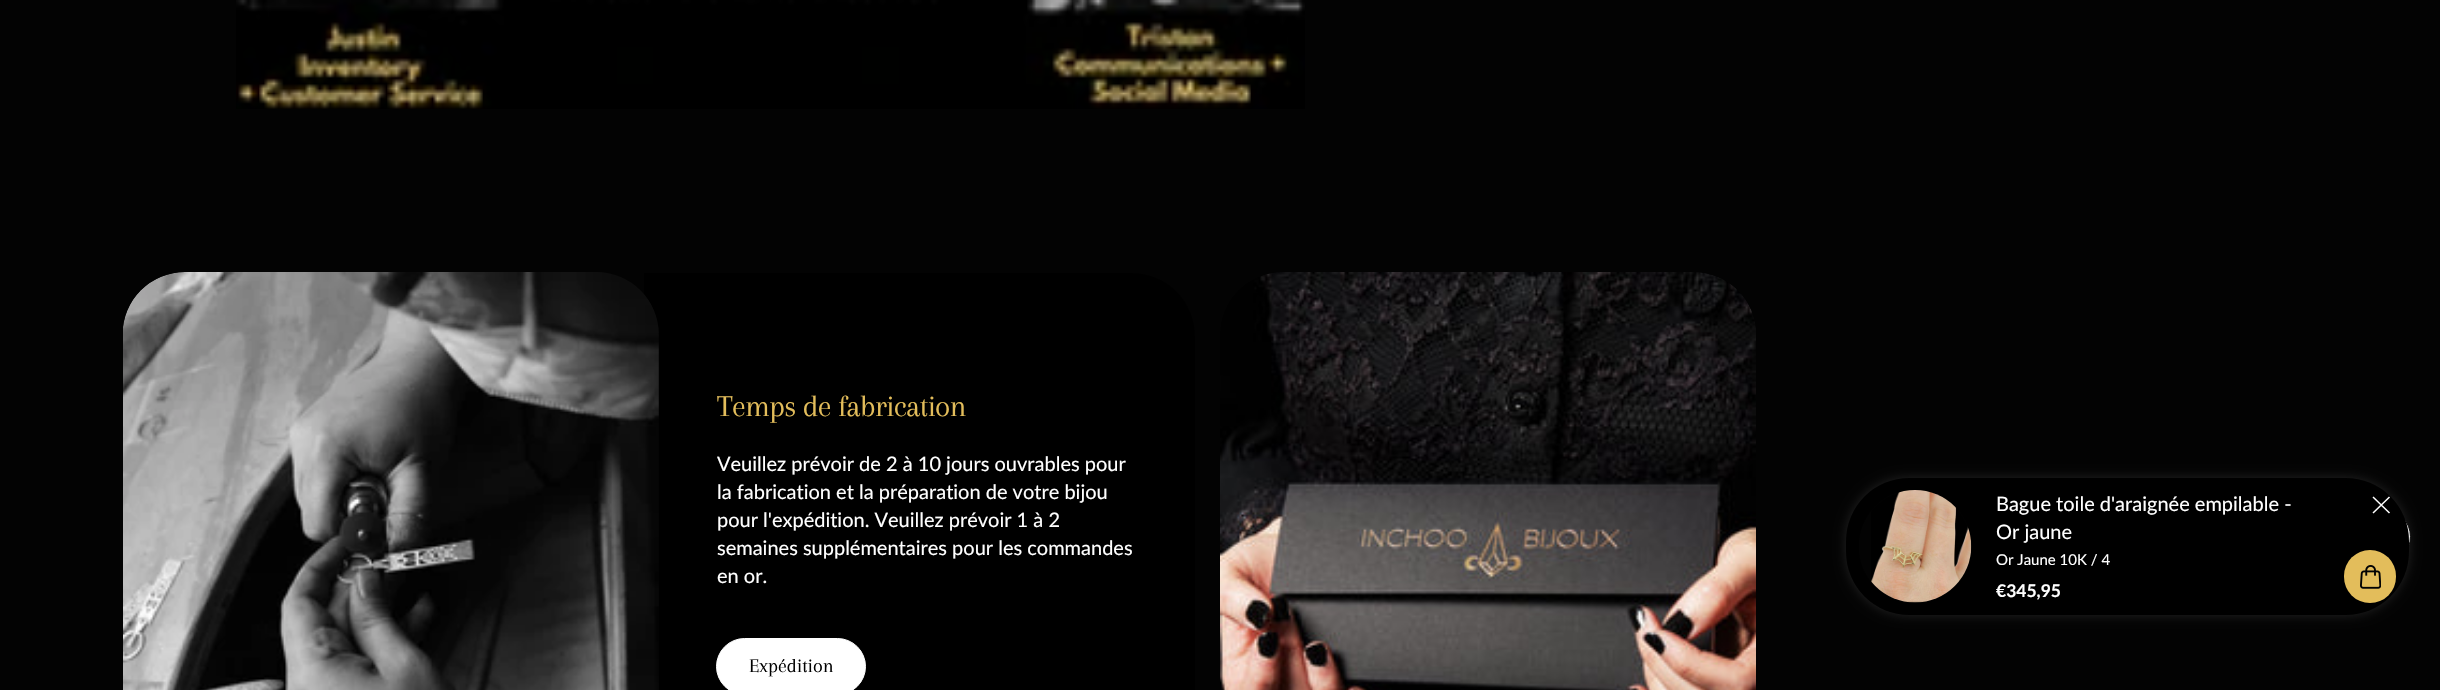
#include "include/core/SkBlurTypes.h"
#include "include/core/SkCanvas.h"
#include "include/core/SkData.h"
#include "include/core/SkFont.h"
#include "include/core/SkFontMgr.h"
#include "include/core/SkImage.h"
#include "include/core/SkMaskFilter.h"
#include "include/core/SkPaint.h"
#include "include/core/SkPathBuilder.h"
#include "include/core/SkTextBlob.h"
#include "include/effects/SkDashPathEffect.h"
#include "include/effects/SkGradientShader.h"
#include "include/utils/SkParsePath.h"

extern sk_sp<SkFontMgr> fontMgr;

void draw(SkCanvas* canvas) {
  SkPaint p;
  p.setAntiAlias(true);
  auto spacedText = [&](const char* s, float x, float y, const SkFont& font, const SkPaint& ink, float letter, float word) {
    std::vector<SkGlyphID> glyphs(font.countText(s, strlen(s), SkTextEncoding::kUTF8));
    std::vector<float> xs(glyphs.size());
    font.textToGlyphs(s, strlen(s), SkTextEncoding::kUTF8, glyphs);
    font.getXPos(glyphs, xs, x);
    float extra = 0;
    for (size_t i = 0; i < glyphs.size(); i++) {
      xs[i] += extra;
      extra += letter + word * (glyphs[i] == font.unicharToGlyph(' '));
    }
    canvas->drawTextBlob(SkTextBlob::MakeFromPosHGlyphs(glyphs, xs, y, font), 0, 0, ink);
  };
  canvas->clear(SkColorSetRGB(3, 3, 3));
  canvas->drawImageRect(SkImages::DeferredFromEncodedData(SkData::MakeFromFileName("images/1.png")), SkRect::MakeLTRB(236, 0, 1305, 109), SkSamplingOptions());
  p.setColor(SK_ColorBLACK);
  canvas->drawRect(SkRect::MakeLTRB(644, 273, 659, 690), p);
  p.setColor(SkColorSetRGB(3, 3, 3));
  canvas->drawRoundRect(SkRect::MakeLTRB(123, 273, 659, 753), 63, 63, p);
  canvas->drawImageRect(SkImages::DeferredFromEncodedData(SkData::MakeFromFileName("images/2.png")), SkRect::MakeLTRB(123, 272, 659, 690), SkSamplingOptions());
  p.setColor(SK_ColorBLACK);
  canvas->drawPath(SkPathBuilder().moveTo(659, 273).lineTo(1132, 273).cubicTo(1167, 273, 1195, 301, 1195, 336).lineTo(1195, 690).cubicTo(1195, 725, 1167, 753, 1132, 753).lineTo(659, 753).close().detach(), p);
  p.setColor(SK_ColorWHITE);
  canvas->drawRoundRect(SkRect::MakeLTRB(716.5f, 638.5f, 865.5f, 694.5f), 28, 28, p);
  p.setStyle(SkPaint::kStroke_Style);
  p.setStrokeWidth(1);
  canvas->drawRoundRect(SkRect::MakeLTRB(716.5f, 638.5f, 865.5f, 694.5f), 28, 28, p);
  canvas->drawImageRect(SkImages::DeferredFromEncodedData(SkData::MakeFromFileName("images/3.png")), SkRect::MakeLTRB(1220, 272, 1756, 690), SkSamplingOptions());
  p.setStyle(SkPaint::kFill_Style);
  canvas->drawCircle(2383.5f, 536.5f, 27, p);
  p.setStyle(SkPaint::kStroke_Style);
  p.setColor(SK_ColorBLACK);
  canvas->drawCircle(2383.5f, 536.5f, 27, p);
  p.setStyle(SkPaint::kFill_Style);
  p.setColor(SkColorSetARGB(77, 102, 102, 102));
  p.setMaskFilter(SkMaskFilter::MakeBlur(kNormal_SkBlurStyle, 6));
  canvas->drawRoundRect(SkRect::MakeLTRB(1846, 478, 2409, 615), 63, 63, p);
  p.setMaskFilter(nullptr);
  p.setColor(SK_ColorBLACK);
  canvas->drawRoundRect(SkRect::MakeLTRB(1846, 478, 2409, 615), 63, 63, p);
  p.setColor(SkColorSetRGB(3, 3, 3));
  canvas->drawRoundRect(SkRect::MakeLTRB(1859, 490, 1971, 603), 56, 56, p);
  canvas->drawImageRect(SkImages::DeferredFromEncodedData(SkData::MakeFromFileName("images/4.png")), SkRect::MakeLTRB(1871, 490, 1972, 603), SkSamplingOptions());
  p.setColor(SkColorSetRGB(227, 189, 91));
  canvas->drawRoundRect(SkRect::MakeLTRB(2344, 550, 2396, 603), 26, 26, p);
  canvas->drawImageRect(SkImages::DeferredFromEncodedData(SkData::MakeFromFileName("images/5.png")), SkRect::MakeLTRB(2360, 565, 2381, 589), SkSamplingOptions());
  p.setStyle(SkPaint::kStroke_Style);
  p.setStrokeWidth(1.5f);
  p.setColor(SK_ColorWHITE);
  canvas->drawPath(SkPathBuilder().moveTo(2373, 497).lineTo(2389.5f, 513).moveTo(2373, 513).lineTo(2389.5f, 497).detach(), p);
  SkFont font1(fontMgr->matchFamilyStyle("Arapey", SkFontStyle::Normal()), 31.25f);
  font1.setSubpixel(true);
  p.setStyle(SkPaint::kFill_Style);
  p.setColor(SkColorSetRGB(227, 189, 91));
  spacedText("Temps de fabrication", 717, 416, font1, p, -0.75f, 0);
  SkFont font2(fontMgr->matchFamilyStyle("Lato", SkFontStyle::Normal()), 20);
  font2.setSubpixel(true);
  p.setColor(SK_ColorWHITE);
  canvas->drawString("Veuillez prévoir de 2 à 10 jours ouvrables pour", 717, 471, font2, p);
  canvas->drawString("la fabrication et la préparation de votre bijou", 717, 499, font2, p);
  canvas->drawString("pour l'expédition. Veuillez prévoir 1 à 2", 717, 527, font2, p);
  canvas->drawString("semaines supplémentaires pour les commandes", 717, 555, font2, p);
  canvas->drawString("en or.", 717, 583, font2, p);
  SkFont font3(fontMgr->matchFamilyStyle("Arapey", SkFontStyle::Normal()), 20);
  font3.setSubpixel(true);
  p.setColor(SK_ColorBLACK);
  canvas->drawString("Expédition", 749, 672, font3, p);
  p.setColor(SK_ColorWHITE);
  canvas->drawString("Bague toile d'araignée empilable -", 1996, 511, font2, p);
  canvas->drawString("Or jaune", 1996, 539, font2, p);
  SkFont font4(fontMgr->matchFamilyStyle("Lato", SkFontStyle::Normal()), 15);
  font4.setSubpixel(true);
  canvas->drawString("Or Jaune 10K / 4", 1996, 565, font4, p);
  SkFont font5(fontMgr->matchFamilyStyle("Lato", SkFontStyle::Bold()), 17.5f);
  font5.setSubpixel(true);
  canvas->drawString("€345,95", 1996, 597, font5, p);
}
